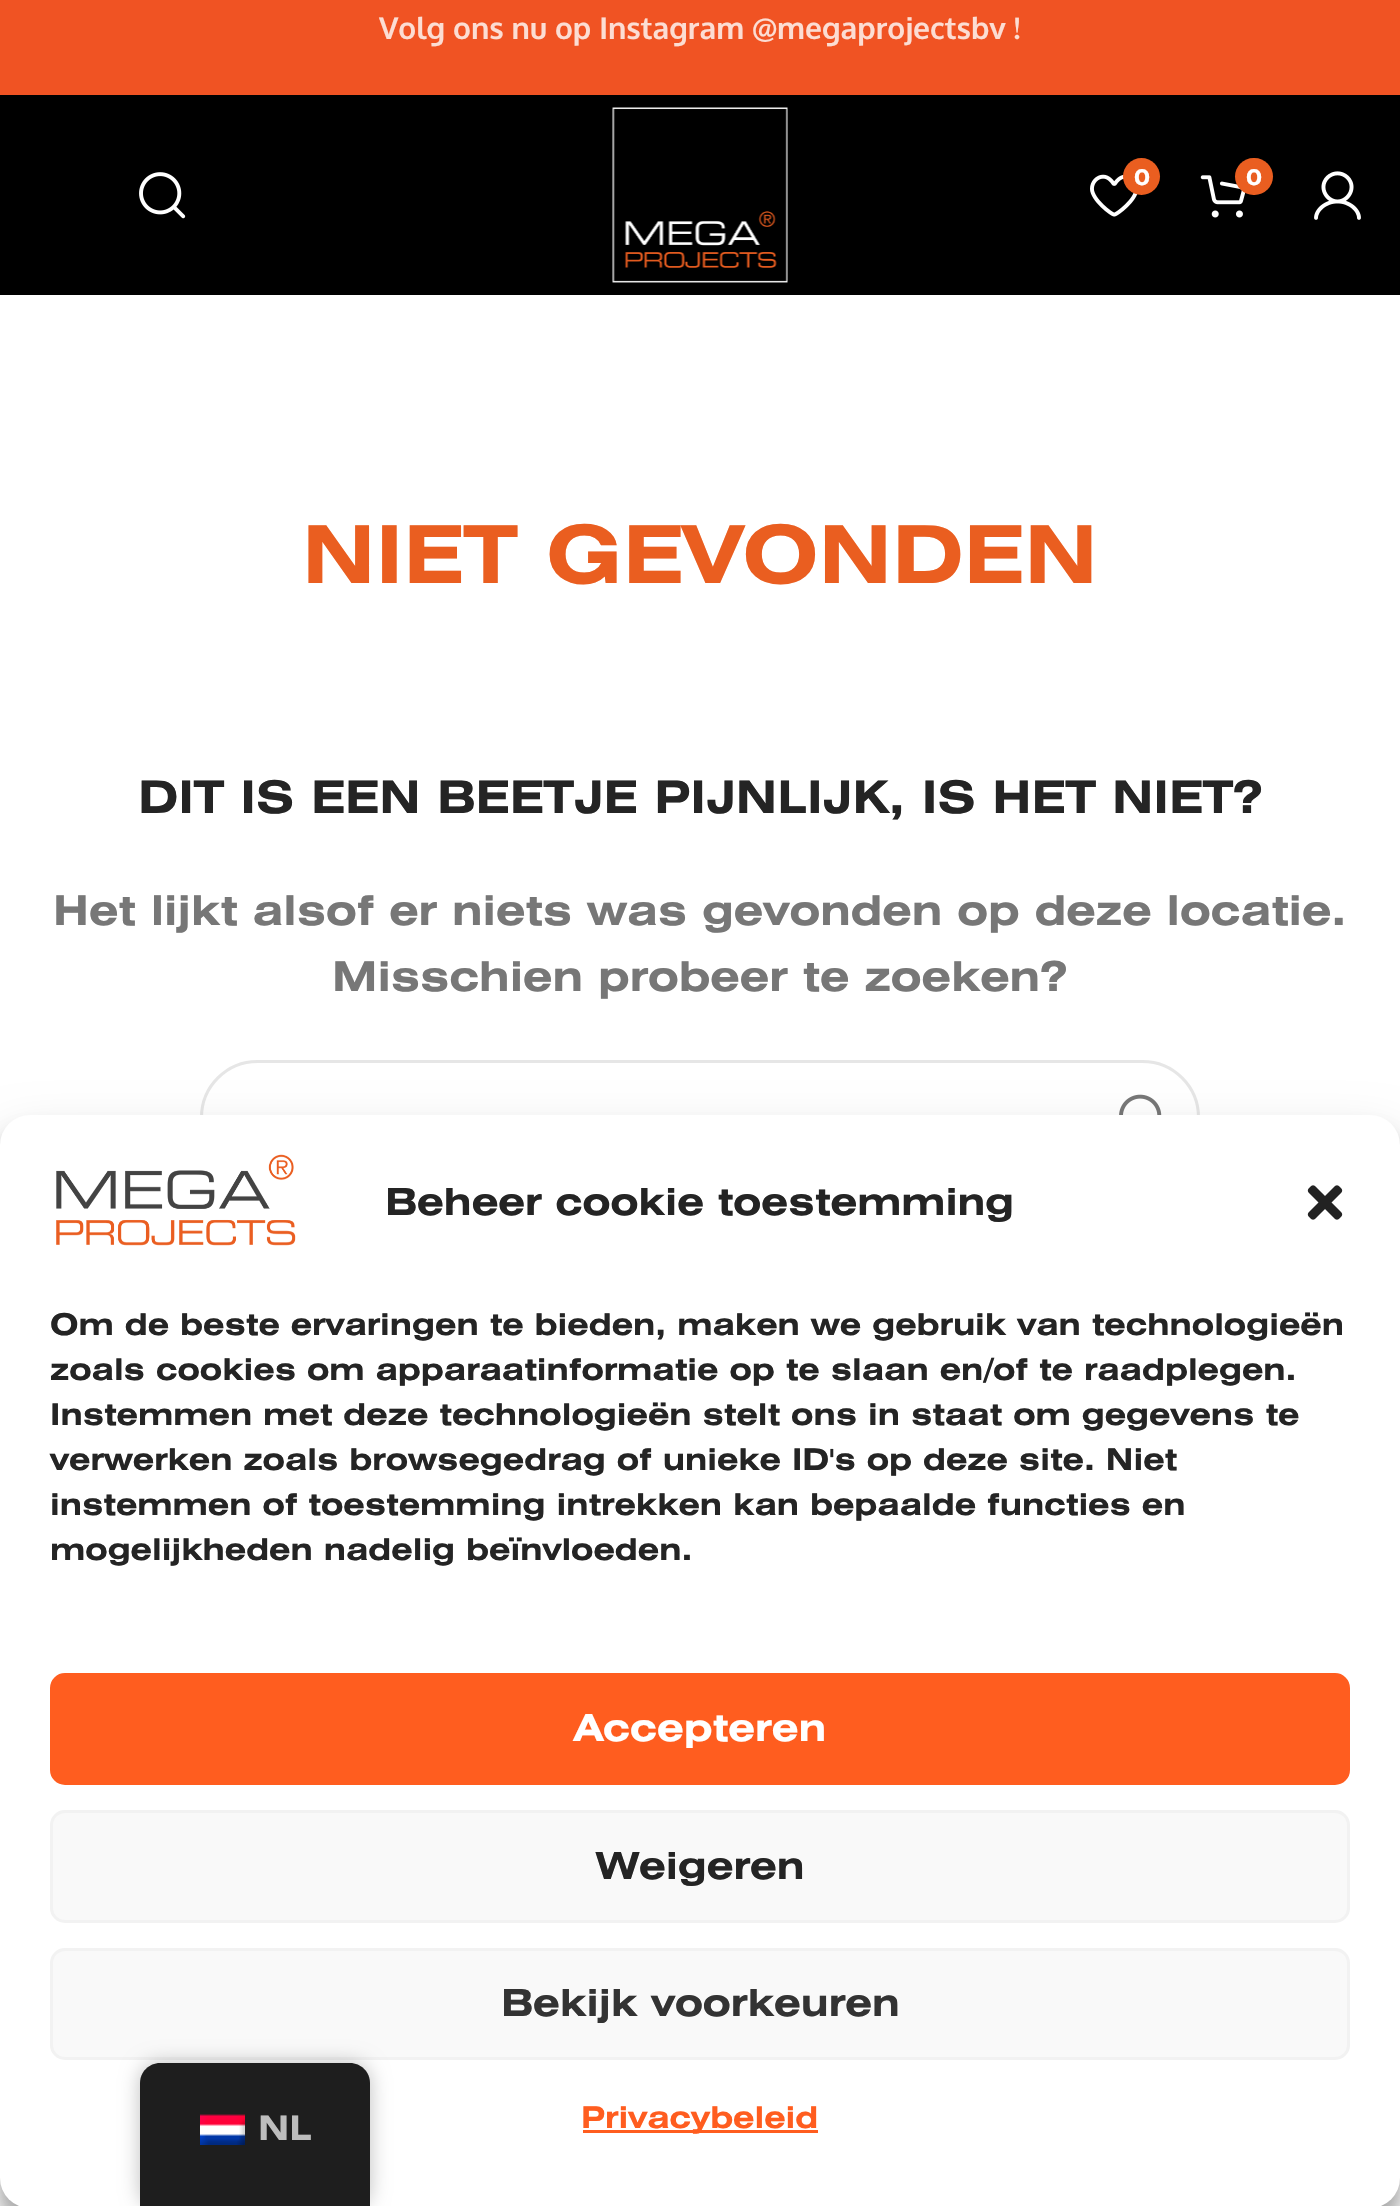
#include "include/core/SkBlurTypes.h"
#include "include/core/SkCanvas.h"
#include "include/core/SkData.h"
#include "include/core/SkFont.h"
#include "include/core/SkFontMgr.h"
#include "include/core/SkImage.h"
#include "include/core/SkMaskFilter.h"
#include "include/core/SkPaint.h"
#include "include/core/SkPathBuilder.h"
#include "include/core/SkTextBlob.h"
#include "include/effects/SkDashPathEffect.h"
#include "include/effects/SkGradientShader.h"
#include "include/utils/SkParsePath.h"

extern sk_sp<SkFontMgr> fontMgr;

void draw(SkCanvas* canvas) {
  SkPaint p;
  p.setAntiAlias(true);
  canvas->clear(SK_ColorWHITE);
  p.setColor(SkColorSetRGB(240, 83, 35));
  canvas->drawRect(SkRect::MakeLTRB(0, 0, 1400, 95), p);
  p.setColor(SK_ColorBLACK);
  canvas->drawRect(SkRect::MakeLTRB(0, 95, 1400, 295), p);
  canvas->drawImageRect(SkImages::DeferredFromEncodedData(SkData::MakeFromFileName("images/1.png")), SkRect::MakeLTRB(139, 172, 186, 219), SkSamplingOptions());
  canvas->drawImageRect(SkImages::DeferredFromEncodedData(SkData::MakeFromFileName("images/2.png")), SkRect::MakeLTRB(612, 107, 788, 283), SkSamplingOptions());
  canvas->drawImageRect(SkImages::DeferredFromEncodedData(SkData::MakeFromFileName("images/3.png")), SkRect::MakeLTRB(1090, 174, 1138, 217), SkSamplingOptions());
  p.setColor(SkColorSetRGB(234, 94, 32));
  canvas->drawCircle(1141.5f, 176.5f, 18.5f, p);
  canvas->drawImageRect(SkImages::DeferredFromEncodedData(SkData::MakeFromFileName("images/4.png")), SkRect::MakeLTRB(1200, 175, 1246, 218), SkSamplingOptions());
  canvas->drawRoundRect(SkRect::MakeLTRB(1235, 158, 1273, 195), 18.5f, 18.5f, p);
  canvas->drawImageRect(SkImages::DeferredFromEncodedData(SkData::MakeFromFileName("images/5.png")), SkRect::MakeLTRB(1314, 171, 1361, 220), SkSamplingOptions());
  p.setStyle(SkPaint::kStroke_Style);
  p.setStrokeWidth(3);
  p.setColor(SkColorSetRGB(230, 230, 230));
  canvas->drawRoundRect(SkRect::MakeLTRB(201.5f, 1061.5f, 1198.5f, 1173.5f), 56, 56, p);
  canvas->drawImageRect(SkImages::DeferredFromEncodedData(SkData::MakeFromFileName("images/6.png")), SkRect::MakeLTRB(1119, 1094, 1162, 1115), SkSamplingOptions());
  p.setStyle(SkPaint::kFill_Style);
  p.setColor(SkColorSetARGB(59, 0, 0, 0));
  p.setMaskFilter(SkMaskFilter::MakeBlur(kNormal_SkBlurStyle, 7.5f));
  canvas->drawRoundRect(SkRect::MakeLTRB(0, 1130, 1400, 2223), 30, 30, p);
  p.setMaskFilter(nullptr);
  p.setColor(SkColorSetARGB(48, 0, 0, 0));
  p.setMaskFilter(SkMaskFilter::MakeBlur(kNormal_SkBlurStyle, 25));
  canvas->drawRoundRect(SkRect::MakeLTRB(0, 1140, 1400, 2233), 30, 30, p);
  p.setMaskFilter(nullptr);
  p.setColor(SK_ColorWHITE);
  canvas->drawRoundRect(SkRect::MakeLTRB(0, 1115, 1400, 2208), 30, 30, p);
  canvas->drawImageRect(SkImages::DeferredFromEncodedData(SkData::MakeFromFileName("images/7.png")), SkRect::MakeLTRB(56, 1154, 296, 1246), SkSamplingOptions());
  canvas->drawImageRect(SkImages::DeferredFromEncodedData(SkData::MakeFromFileName("images/8.png")), SkRect::MakeLTRB(1307, 1185, 1343, 1220), SkSamplingOptions());
  p.setColor(SkColorSetRGB(255, 93, 31));
  canvas->drawRoundRect(SkRect::MakeLTRB(51.5f, 1674.5f, 1348.5f, 1783.5f), 13.5f, 13.5f, p);
  p.setStyle(SkPaint::kStroke_Style);
  canvas->drawRoundRect(SkRect::MakeLTRB(51.5f, 1674.5f, 1348.5f, 1783.5f), 13.5f, 13.5f, p);
  p.setStyle(SkPaint::kFill_Style);
  p.setColor(SkColorSetRGB(249, 249, 249));
  canvas->drawRoundRect(SkRect::MakeLTRB(51.5f, 1811.5f, 1348.5f, 1921.5f), 13.5f, 13.5f, p);
  p.setStyle(SkPaint::kStroke_Style);
  p.setColor(SkColorSetRGB(242, 242, 242));
  canvas->drawRoundRect(SkRect::MakeLTRB(51.5f, 1811.5f, 1348.5f, 1921.5f), 13.5f, 13.5f, p);
  p.setStyle(SkPaint::kFill_Style);
  p.setColor(SkColorSetRGB(249, 249, 249));
  canvas->drawRoundRect(SkRect::MakeLTRB(51.5f, 1949.5f, 1348.5f, 2058.5f), 13.5f, 13.5f, p);
  p.setStyle(SkPaint::kStroke_Style);
  p.setColor(SkColorSetRGB(242, 242, 242));
  canvas->drawRoundRect(SkRect::MakeLTRB(51.5f, 1949.5f, 1348.5f, 2058.5f), 13.5f, 13.5f, p);
  p.setStyle(SkPaint::kFill_Style);
  p.setColor(SkColorSetRGB(255, 93, 31));
  canvas->drawRect(SkRect::MakeLTRB(583, 2130, 818, 2133), p);
  p.setColor(SkColorSetARGB(64, 0, 0, 0));
  p.setMaskFilter(SkMaskFilter::MakeBlur(kNormal_SkBlurStyle, 10));
  canvas->drawRoundRect(SkRect::MakeLTRB(140, 2063, 370, 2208), 20, 20, p);
  p.setMaskFilter(nullptr);
  p.setColor(SkColorSetRGB(30, 30, 30));
  canvas->drawPath(SkPathBuilder().moveTo(160, 2063).lineTo(350, 2063).cubicTo(361, 2063, 370, 2072, 370, 2083).lineTo(370, 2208).lineTo(140, 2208).lineTo(140, 2083).cubicTo(140, 2072, 149, 2063, 160, 2063).close().detach(), p);
  canvas->drawImageRect(SkImages::DeferredFromEncodedData(SkData::MakeFromFileName("images/9.png")), SkRect::MakeLTRB(200, 2114, 245, 2145), SkSamplingOptions());
  SkFont font1(fontMgr->matchFamilyStyle("Oxygen", SkFontStyle::Bold()), 30);
  font1.setSubpixel(true);
  p.setColor(SkColorSetRGB(252, 221, 211));
  canvas->drawString("Volg ons nu op Instagram @megaprojectsbv !", 379, 39, font1, p);
  SkFont font2(fontMgr->matchFamilyStyle("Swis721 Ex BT", SkFontStyle::Bold()), 22);
  font2.setSubpixel(true);
  p.setColor(SK_ColorWHITE);
  canvas->drawString("0", 1134, 185, font2, p);
  canvas->drawString("0", 1246, 185, font2, p);
  SkFont font3(fontMgr->matchFamilyStyle("Swis721 Ex BT", SkFontStyle::Bold()), 80);
  font3.setSubpixel(true);
  p.setColor(SkColorSetRGB(234, 94, 32));
  canvas->drawString("NIET GEVONDEN", 302, 583, font3, p);
  SkFont font4(fontMgr->matchFamilyStyle("Swis721 Ex BT", SkFontStyle::Bold()), 45);
  font4.setSubpixel(true);
  p.setColor(SkColorSetRGB(36, 36, 36));
  canvas->drawString("DIT IS EEN BEETJE PIJNLIJK, IS HET NIET?", 138, 813, font4, p);
  SkFont font5(fontMgr->matchFamilyStyle("Swis721 Ex BT", SkFontStyle::Bold()), 41.25f);
  font5.setSubpixel(true);
  p.setColor(SkColorSetRGB(119, 119, 119));
  canvas->drawString("Het lijkt alsof er niets was gevonden op deze locatie.", 53, 925, font5, p);
  canvas->drawString("Misschien probeer te zoeken?", 332, 991, font5, p);
  SkFont font6(fontMgr->matchFamilyStyle("Swis721 Ex BT", SkFontStyle::Bold()), 37.5f);
  font6.setSubpixel(true);
  p.setColor(SkColorSetRGB(36, 36, 36));
  canvas->drawString("Beheer cookie toestemming", 385, 1215, font6, p);
  SkFont font7(fontMgr->matchFamilyStyle("Swis721 Ex BT", SkFontStyle::Bold()), 30);
  font7.setSubpixel(true);
  canvas->drawString("Om de beste ervaringen te bieden, maken we gebruik van technologieën", 50, 1335, font7, p);
  canvas->drawString("zoals cookies om apparaatinformatie op te slaan en/of te raadplegen.", 50, 1380, font7, p);
  canvas->drawString("Instemmen met deze technologieën stelt ons in staat om gegevens te", 50, 1425, font7, p);
  canvas->drawString("verwerken zoals browsegedrag of unieke ID's op deze site. Niet", 50, 1470, font7, p);
  canvas->drawString("instemmen of toestemming intrekken kan bepaalde functies en", 50, 1515, font7, p);
  canvas->drawString("mogelijkheden nadelig beïnvloeden.", 50, 1560, font7, p);
  p.setColor(SK_ColorWHITE);
  canvas->drawString("Accepteren", 574, 1741, font6, p);
  p.setColor(SkColorSetRGB(36, 36, 36));
  canvas->drawString("Weigeren", 596, 1879, font6, p);
  p.setColor(SkColorSetRGB(51, 51, 51));
  canvas->drawString("Bekijk voorkeuren", 501, 2016, font6, p);
  p.setColor(SkColorSetRGB(255, 93, 31));
  canvas->drawString("Privacybeleid", 581, 2128, font7, p);
  SkFont font8(fontMgr->matchFamilyStyle("Swis721 Ex BT", SkFontStyle::Bold()), 34);
  font8.setSubpixel(true);
  p.setColor(SkColorSetRGB(189, 189, 189));
  canvas->drawString("NL", 258, 2140, font8, p);
}
